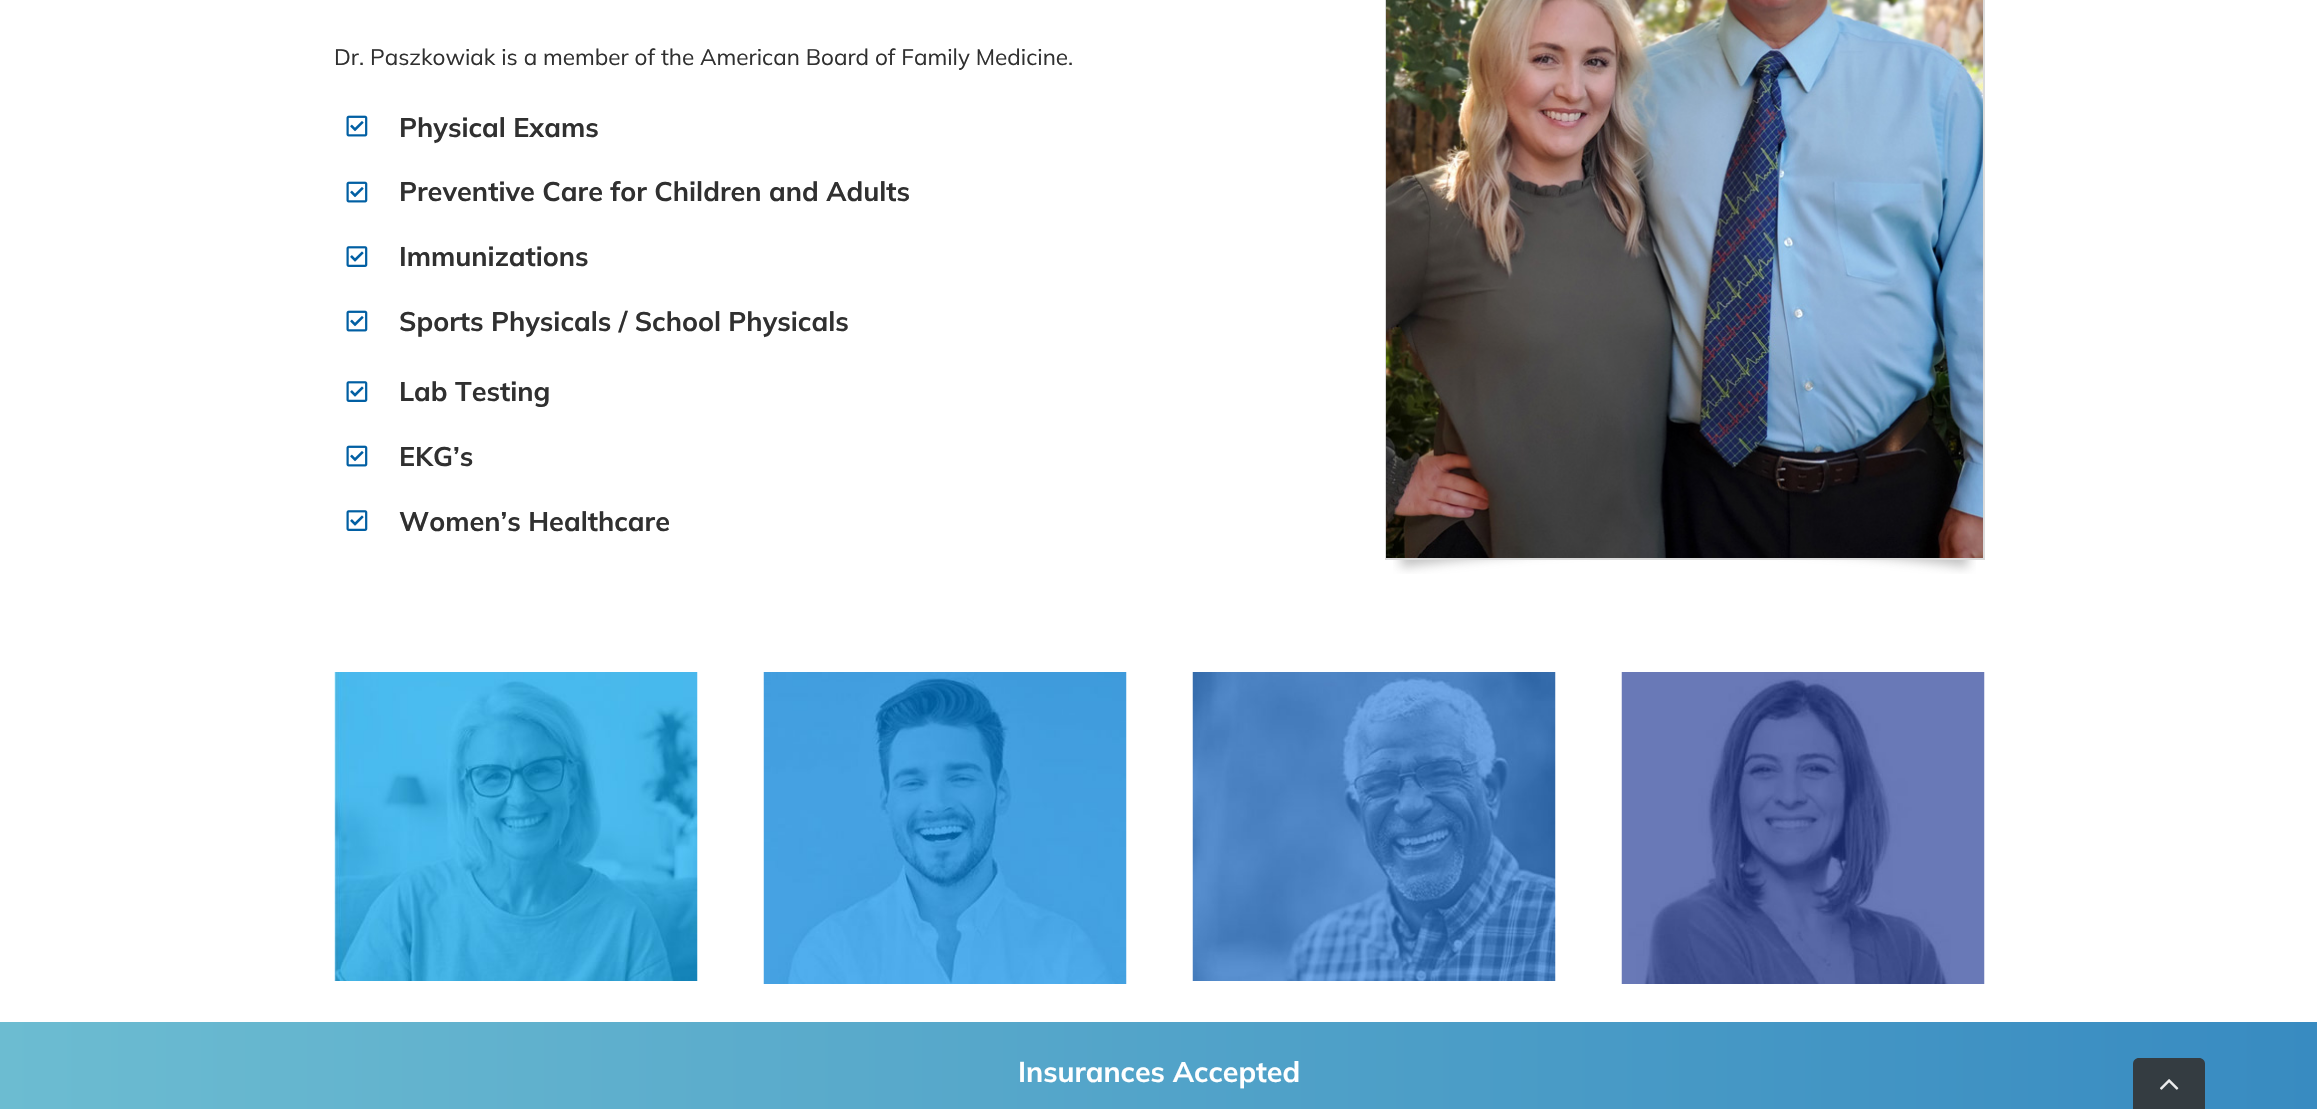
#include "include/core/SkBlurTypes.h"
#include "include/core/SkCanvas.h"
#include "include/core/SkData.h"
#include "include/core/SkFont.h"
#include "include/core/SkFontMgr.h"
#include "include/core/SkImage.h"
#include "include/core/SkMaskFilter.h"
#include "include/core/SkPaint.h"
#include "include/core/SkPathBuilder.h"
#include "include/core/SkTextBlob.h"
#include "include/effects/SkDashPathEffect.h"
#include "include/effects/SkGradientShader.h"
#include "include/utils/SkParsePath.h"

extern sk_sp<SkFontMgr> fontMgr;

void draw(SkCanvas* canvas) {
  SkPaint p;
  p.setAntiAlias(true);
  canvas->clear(SK_ColorWHITE);
  canvas->drawImageRect(SkImages::DeferredFromEncodedData(SkData::MakeFromFileName("images/1.png")), SkRect::MakeLTRB(346, 115, 368, 137), SkSamplingOptions());
  canvas->drawImageRect(SkImages::DeferredFromEncodedData(SkData::MakeFromFileName("images/1.png")), SkRect::MakeLTRB(346, 181, 368, 203), SkSamplingOptions());
  canvas->drawImageRect(SkImages::DeferredFromEncodedData(SkData::MakeFromFileName("images/2.png")), SkRect::MakeLTRB(346, 246, 368, 267), SkSamplingOptions());
  canvas->drawImageRect(SkImages::DeferredFromEncodedData(SkData::MakeFromFileName("images/1.png")), SkRect::MakeLTRB(346, 310, 368, 332), SkSamplingOptions());
  canvas->drawImageRect(SkImages::DeferredFromEncodedData(SkData::MakeFromFileName("images/2.png")), SkRect::MakeLTRB(346, 381, 368, 402), SkSamplingOptions());
  canvas->drawImageRect(SkImages::DeferredFromEncodedData(SkData::MakeFromFileName("images/1.png")), SkRect::MakeLTRB(346, 445, 368, 467), SkSamplingOptions());
  canvas->drawImageRect(SkImages::DeferredFromEncodedData(SkData::MakeFromFileName("images/2.png")), SkRect::MakeLTRB(346, 510, 368, 531), SkSamplingOptions());
  p.setStyle(SkPaint::kStroke_Style);
  p.setStrokeWidth(2);
  p.setColor(SkColorSetRGB(219, 219, 219));
  canvas->drawRect(SkRect::MakeLTRB(1386, -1, 1984, 559), p);
  canvas->drawImageRect(SkImages::DeferredFromEncodedData(SkData::MakeFromFileName("images/3.png")), SkRect::MakeLTRB(1386, 0, 1983, 558), SkSamplingOptions());
  canvas->drawImageRect(SkImages::DeferredFromEncodedData(SkData::MakeFromFileName("images/4.png")), SkRect::MakeLTRB(1393, 560, 1976, 574), SkSamplingOptions());
  canvas->drawImageRect(SkImages::DeferredFromEncodedData(SkData::MakeFromFileName("images/5.png")), SkRect::MakeLTRB(334, 672, 698, 981), SkSamplingOptions());
  canvas->drawImageRect(SkImages::DeferredFromEncodedData(SkData::MakeFromFileName("images/6.png")), SkRect::MakeLTRB(763, 672, 1127, 984), SkSamplingOptions());
  canvas->drawImageRect(SkImages::DeferredFromEncodedData(SkData::MakeFromFileName("images/7.png")), SkRect::MakeLTRB(1192, 672, 1556, 981), SkSamplingOptions());
  canvas->drawImageRect(SkImages::DeferredFromEncodedData(SkData::MakeFromFileName("images/8.png")), SkRect::MakeLTRB(1621, 672, 1985, 984), SkSamplingOptions());
  p.setStyle(SkPaint::kFill_Style);
  {
    const SkColor colors[] = {SkColorSetRGB(108, 188, 209), SkColorSetRGB(56, 139, 193)};
    const float stops[] = {0, 1};
    const SkPoint ends[] = {{0, 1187}, {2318, 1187}};
    p.setShader(SkGradientShader::MakeLinear(ends, colors, stops, 2, SkTileMode::kClamp));
    p.setAlpha(255);
  }
  canvas->drawRect(SkRect::MakeLTRB(0, 1022, 2317, 1109), p);
  p.setShader(nullptr);
  p.setColor(SkColorSetRGB(52, 60, 65));
  canvas->drawPath(SkPathBuilder().moveTo(2139, 1058).lineTo(2199, 1058).cubicTo(2202.5f, 1058, 2205, 1060.5f, 2205, 1064).lineTo(2205, 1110).lineTo(2133, 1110).lineTo(2133, 1064).cubicTo(2133, 1060.5f, 2135.5f, 1058, 2139, 1058).close().detach(), p);
  canvas->drawImageRect(SkImages::DeferredFromEncodedData(SkData::MakeFromFileName("images/9.png")), SkRect::MakeLTRB(2160, 1079, 2179, 1090), SkSamplingOptions());
  SkFont font1(fontMgr->matchFamilyStyle("Mulish", SkFontStyle::Normal()), 22.5f);
  font1.setSubpixel(true);
  p.setColor(SkColorSetRGB(48, 48, 48));
  canvas->drawString("Dr. Paszkowiak is a member of the American Board of Family Medicine.", 334, 65, font1, p);
  SkFont font2(fontMgr->matchFamilyStyle("Mulish", SkFontStyle::Bold()), 27);
  font2.setSubpixel(true);
  canvas->drawString("Physical Exams", 399, 137, font2, p);
  canvas->drawString("Preventive Care for Children and Adults", 399, 201, font2, p);
  canvas->drawString("Immunizations", 399, 266, font2, p);
  canvas->drawString("Sports Physicals / School Physicals", 399, 331, font2, p);
  canvas->drawString("Lab Testing", 399, 401, font2, p);
  canvas->drawString("EKG’s", 399, 466, font2, p);
  canvas->drawString("Women’s Healthcare", 399, 531, font2, p);
  SkFont font3(fontMgr->matchFamilyStyle("Mulish", SkFontStyle::Bold()), 28.5f);
  font3.setSubpixel(true);
  p.setColor(SK_ColorWHITE);
  canvas->drawString("Insurances Accepted", 1018, 1082, font3, p);
}
